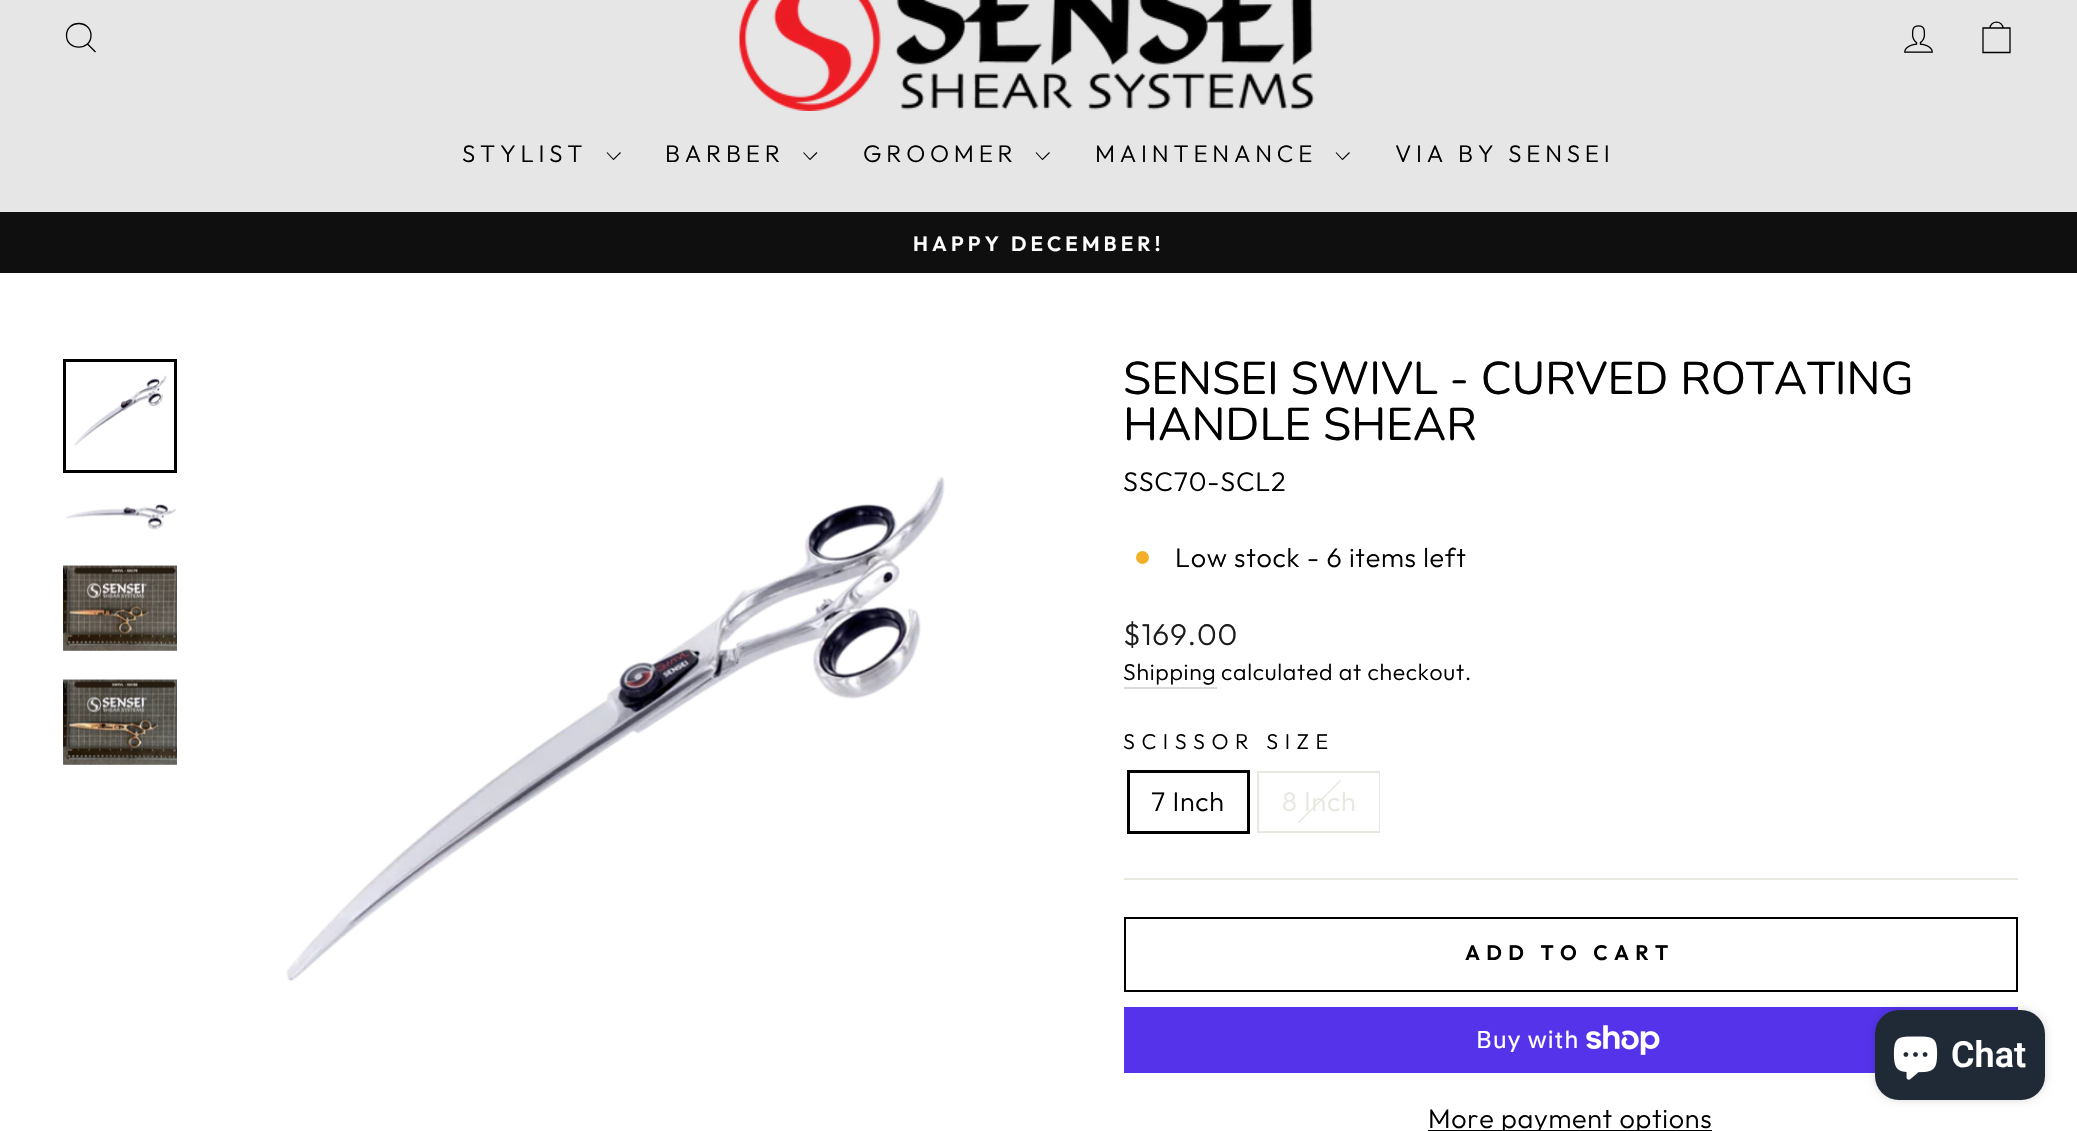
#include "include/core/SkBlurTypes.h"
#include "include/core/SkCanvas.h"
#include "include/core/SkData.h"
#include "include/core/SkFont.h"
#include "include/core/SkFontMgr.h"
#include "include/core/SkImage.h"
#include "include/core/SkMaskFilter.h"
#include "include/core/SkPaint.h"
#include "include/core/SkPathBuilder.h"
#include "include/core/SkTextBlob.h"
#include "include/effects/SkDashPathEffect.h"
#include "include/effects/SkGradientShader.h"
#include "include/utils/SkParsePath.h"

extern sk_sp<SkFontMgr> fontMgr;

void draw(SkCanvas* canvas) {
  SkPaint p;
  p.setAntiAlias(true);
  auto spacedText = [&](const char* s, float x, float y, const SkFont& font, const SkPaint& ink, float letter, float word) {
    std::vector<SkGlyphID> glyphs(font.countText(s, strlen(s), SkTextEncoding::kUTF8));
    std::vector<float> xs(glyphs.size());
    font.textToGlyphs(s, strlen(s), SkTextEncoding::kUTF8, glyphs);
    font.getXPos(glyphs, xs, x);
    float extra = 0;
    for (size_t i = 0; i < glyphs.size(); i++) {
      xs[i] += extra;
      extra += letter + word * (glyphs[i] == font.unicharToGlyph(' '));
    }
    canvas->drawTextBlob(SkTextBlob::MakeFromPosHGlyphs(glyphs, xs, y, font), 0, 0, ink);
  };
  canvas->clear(SK_ColorWHITE);
  p.setColor(SkColorSetRGB(230, 230, 230));
  canvas->drawRect(SkRect::MakeLTRB(0, 0, 2077, 212), p);
  p.setStyle(SkPaint::kStroke_Style);
  p.setStrokeWidth(1.3f);
  p.setColor(SK_ColorBLACK);
  canvas->drawPath(SkPathBuilder().moveTo(91, 35.5f).cubicTo(91, 51, 66.5f, 51, 66.5f, 35.5f).cubicTo(66.5f, 19.5f, 91, 19.5f, 91, 35.5f).close().moveTo(95.5f, 52).lineTo(87.5f, 44).detach(), p);
  canvas->drawImageRect(SkImages::DeferredFromEncodedData(SkData::MakeFromFileName("images/1.png")), SkRect::MakeLTRB(739, 0, 1315, 111), SkSamplingOptions());
  canvas->drawImageRect(SkImages::DeferredFromEncodedData(SkData::MakeFromFileName("images/2.png")), SkRect::MakeLTRB(1904, 25, 1933, 53), SkSamplingOptions());
  canvas->drawPath(SkPathBuilder().moveTo(1983, 28).lineTo(2010, 28).lineTo(2010, 52.5f).lineTo(1983, 52.5f).close().moveTo(1990, 28.5f).cubicTo(1990, 20, 2003, 20, 2003, 28.5f).detach(), p);
  p.setStrokeWidth(1.1f);
  canvas->drawPath(SkPathBuilder().moveTo(607, 152.5f).lineTo(613.5f, 159.5f).lineTo(620.5f, 152.5f).detach(), p);
  canvas->drawPath(SkPathBuilder().moveTo(803.5f, 152.5f).lineTo(810, 159.5f).lineTo(817, 152.5f).detach(), p);
  canvas->drawPath(SkPathBuilder().moveTo(1036, 152.5f).lineTo(1042.5f, 159.5f).lineTo(1049.5f, 152.5f).detach(), p);
  canvas->drawPath(SkPathBuilder().moveTo(1336, 152.5f).lineTo(1342.5f, 159.5f).lineTo(1349.5f, 152.5f).detach(), p);
  p.setStyle(SkPaint::kFill_Style);
  p.setColor(SkColorSetRGB(15, 15, 15));
  canvas->drawRect(SkRect::MakeLTRB(0, 212, 2077, 273), p);
  canvas->drawImageRect(SkImages::DeferredFromEncodedData(SkData::MakeFromFileName("images/3.png")), SkRect::MakeLTRB(74, 375, 167, 446), SkSamplingOptions());
  p.setStyle(SkPaint::kStroke_Style);
  p.setStrokeWidth(3);
  p.setColor(SK_ColorBLACK);
  canvas->drawRect(SkRect::MakeLTRB(64.5f, 360.5f, 175.5f, 471.5f), p);
  canvas->drawImageRect(SkImages::DeferredFromEncodedData(SkData::MakeFromFileName("images/4.png")), SkRect::MakeLTRB(66, 504, 176, 530), SkSamplingOptions());
  canvas->drawImageRect(SkImages::DeferredFromEncodedData(SkData::MakeFromFileName("images/5.png")), SkRect::MakeLTRB(63, 565, 177, 651), SkSamplingOptions());
  canvas->drawImageRect(SkImages::DeferredFromEncodedData(SkData::MakeFromFileName("images/6.png")), SkRect::MakeLTRB(63, 679, 177, 765), SkSamplingOptions());
  canvas->drawImageRect(SkImages::DeferredFromEncodedData(SkData::MakeFromFileName("images/7.png")), SkRect::MakeLTRB(286, 476, 945, 982), SkSamplingOptions());
  p.setStyle(SkPaint::kFill_Style);
  p.setColor(SkColorSetRGB(244, 175, 41));
  canvas->drawCircle(1142.5f, 557.5f, 6.5f, p);
  p.setColor(SkColorSetRGB(217, 217, 217));
  canvas->drawRect(SkRect::MakeLTRB(1124, 687, 1217, 689), p);
  p.setStyle(SkPaint::kStroke_Style);
  p.setColor(SK_ColorBLACK);
  canvas->drawRect(SkRect::MakeLTRB(1128.5f, 771.5f, 1248.5f, 832.5f), p);
  p.setStrokeWidth(2);
  p.setColor(SkColorSetRGB(232, 232, 225));
  canvas->drawRect(SkRect::MakeLTRB(1258, 772, 1379, 832), p);
  p.setStyle(SkPaint::kFill_Style);
  p.setColor(SK_ColorWHITE);
  canvas->drawRect(SkRect::MakeLTRB(1378, 773, 1379, 831), p);
  p.setColor(SkColorSetRGB(232, 232, 225));
  canvas->drawPath(SkPathBuilder().moveTo(1340, 780).lineTo(1341, 781).lineTo(1299, 823).lineTo(1298, 822).close().detach(), p);
  canvas->drawRect(SkRect::MakeLTRB(1124, 878, 2018, 880), p);
  p.setStyle(SkPaint::kStroke_Style);
  p.setColor(SK_ColorBLACK);
  canvas->drawRect(SkRect::MakeLTRB(1125, 918, 2017, 991), p);
  p.setStyle(SkPaint::kFill_Style);
  p.setColor(SkColorSetRGB(84, 51, 235));
  canvas->drawRect(SkRect::MakeLTRB(1124, 1007, 2018, 1073), p);
  canvas->drawImageRect(SkImages::DeferredFromEncodedData(SkData::MakeFromFileName("images/8.png")), SkRect::MakeLTRB(1586, 1025, 1660, 1055), SkSamplingOptions());
  p.setColor(SK_ColorBLACK);
  canvas->drawRect(SkRect::MakeLTRB(1428, 1130, 1712, 1131), p);
  p.setColor(SkColorSetARGB(38, 0, 0, 0));
  p.setMaskFilter(SkMaskFilter::MakeBlur(kNormal_SkBlurStyle, 4));
  canvas->drawRoundRect(SkRect::MakeLTRB(1875, 1010, 2045, 1100), 24, 24, p);
  p.setMaskFilter(nullptr);
  p.setColor(SkColorSetRGB(32, 42, 54));
  canvas->drawRoundRect(SkRect::MakeLTRB(1875, 1010, 2045, 1100), 24, 24, p);
  canvas->drawImageRect(SkImages::DeferredFromEncodedData(SkData::MakeFromFileName("images/9.png")), SkRect::MakeLTRB(1893, 1036, 1938, 1080), SkSamplingOptions());
  SkFont font1(fontMgr->matchFamilyStyle("Outfit", SkFontStyle(300, SkFontStyle::kNormal_Width, SkFontStyle::kUpright_Slant)), 24);
  font1.setSubpixel(true);
  p.setColor(SK_ColorBLACK);
  spacedText("STYLIST", 462, 162, font1, p, 4.75f, 0);
  spacedText("BARBER", 665, 162, font1, p, 4.75f, 0);
  spacedText("GROOMER", 863, 162, font1, p, 4.75f, 0);
  spacedText("MAINTENANCE", 1095, 162, font1, p, 4.75f, 0);
  spacedText("VIA BY SENSEI", 1395, 162, font1, p, 4.75f, 0);
  SkFont font2(fontMgr->matchFamilyStyle("Outfit", SkFontStyle(600, SkFontStyle::kNormal_Width, SkFontStyle::kUpright_Slant)), 20.7f);
  font2.setSubpixel(true);
  p.setColor(SK_ColorWHITE);
  spacedText("HAPPY DECEMBER!", 913, 251, font2, p, 4.1f, 0);
  SkFont font3(fontMgr->matchFamilyStyle("Nunito", SkFontStyle::Normal()), 45.9f);
  font3.setSubpixel(true);
  p.setColor(SK_ColorBLACK);
  canvas->drawString("SENSEI SWIVL - CURVED ROTATING", 1123, 394, font3, p);
  canvas->drawString("HANDLE SHEAR", 1123, 440, font3, p);
  SkFont font4(fontMgr->matchFamilyStyle("Outfit", SkFontStyle(300, SkFontStyle::kNormal_Width, SkFontStyle::kUpright_Slant)), 27);
  font4.setSubpixel(true);
  spacedText("SSC70-SCL2", 1123, 491, font4, p, 0.7f, 0);
  spacedText("Low stock - 6 items left", 1175, 567, font4, p, 0.7f, 0);
  SkFont font5(fontMgr->matchFamilyStyle("Outfit", SkFontStyle(300, SkFontStyle::kNormal_Width, SkFontStyle::kUpright_Slant)), 30);
  font5.setSubpixel(true);
  p.setColor(SkColorSetRGB(28, 29, 29));
  spacedText("$169.00", 1123, 645, font5, p, 0.7f, 0);
  SkFont font6(fontMgr->matchFamilyStyle("Outfit", SkFontStyle(300, SkFontStyle::kNormal_Width, SkFontStyle::kUpright_Slant)), 23);
  font6.setSubpixel(true);
  p.setColor(SK_ColorBLACK);
  spacedText("Shipping", 1123, 680, font6, p, 0.7f, 0);
  spacedText("calculated at checkout.", 1221, 680, font6, p, 0.7f, 0);
  SkFont font7(fontMgr->matchFamilyStyle("Outfit", SkFontStyle(300, SkFontStyle::kNormal_Width, SkFontStyle::kUpright_Slant)), 21.5f);
  font7.setSubpixel(true);
  spacedText("SCISSOR SIZE", 1123, 749, font7, p, 6.5f, 0);
  spacedText("7 Inch", 1151, 811, font4, p, 0.7f, 0);
  p.setColor(SkColorSetRGB(232, 232, 225));
  spacedText("8 Inch", 1282, 811, font4, p, 0.7f, 0);
  SkFont font8(fontMgr->matchFamilyStyle("Outfit", SkFontStyle(600, SkFontStyle::kNormal_Width, SkFontStyle::kUpright_Slant)), 21);
  font8.setSubpixel(true);
  p.setColor(SK_ColorBLACK);
  spacedText("ADD TO CART", 1465, 960, font8, p, 6.25f, 0);
  SkFont font9(fontMgr->matchFamilyStyle("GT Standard", SkFontStyle::Normal()), 24);
  font9.setSubpixel(true);
  p.setColor(SK_ColorWHITE);
  spacedText("Buy with", 1476, 1048, font9, p, 0.7f, 0);
  p.setColor(SK_ColorBLACK);
  spacedText("More payment options", 1428, 1128, font4, p, 0.7f, 0);
  SkFont font10(fontMgr->matchFamilyStyle("Roboto", SkFontStyle(600, SkFontStyle::kNormal_Width, SkFontStyle::kUpright_Slant)), 36);
  font10.setSubpixel(true);
  p.setColor(SK_ColorWHITE);
  canvas->drawString("Chat", 1951, 1067, font10, p);
}
